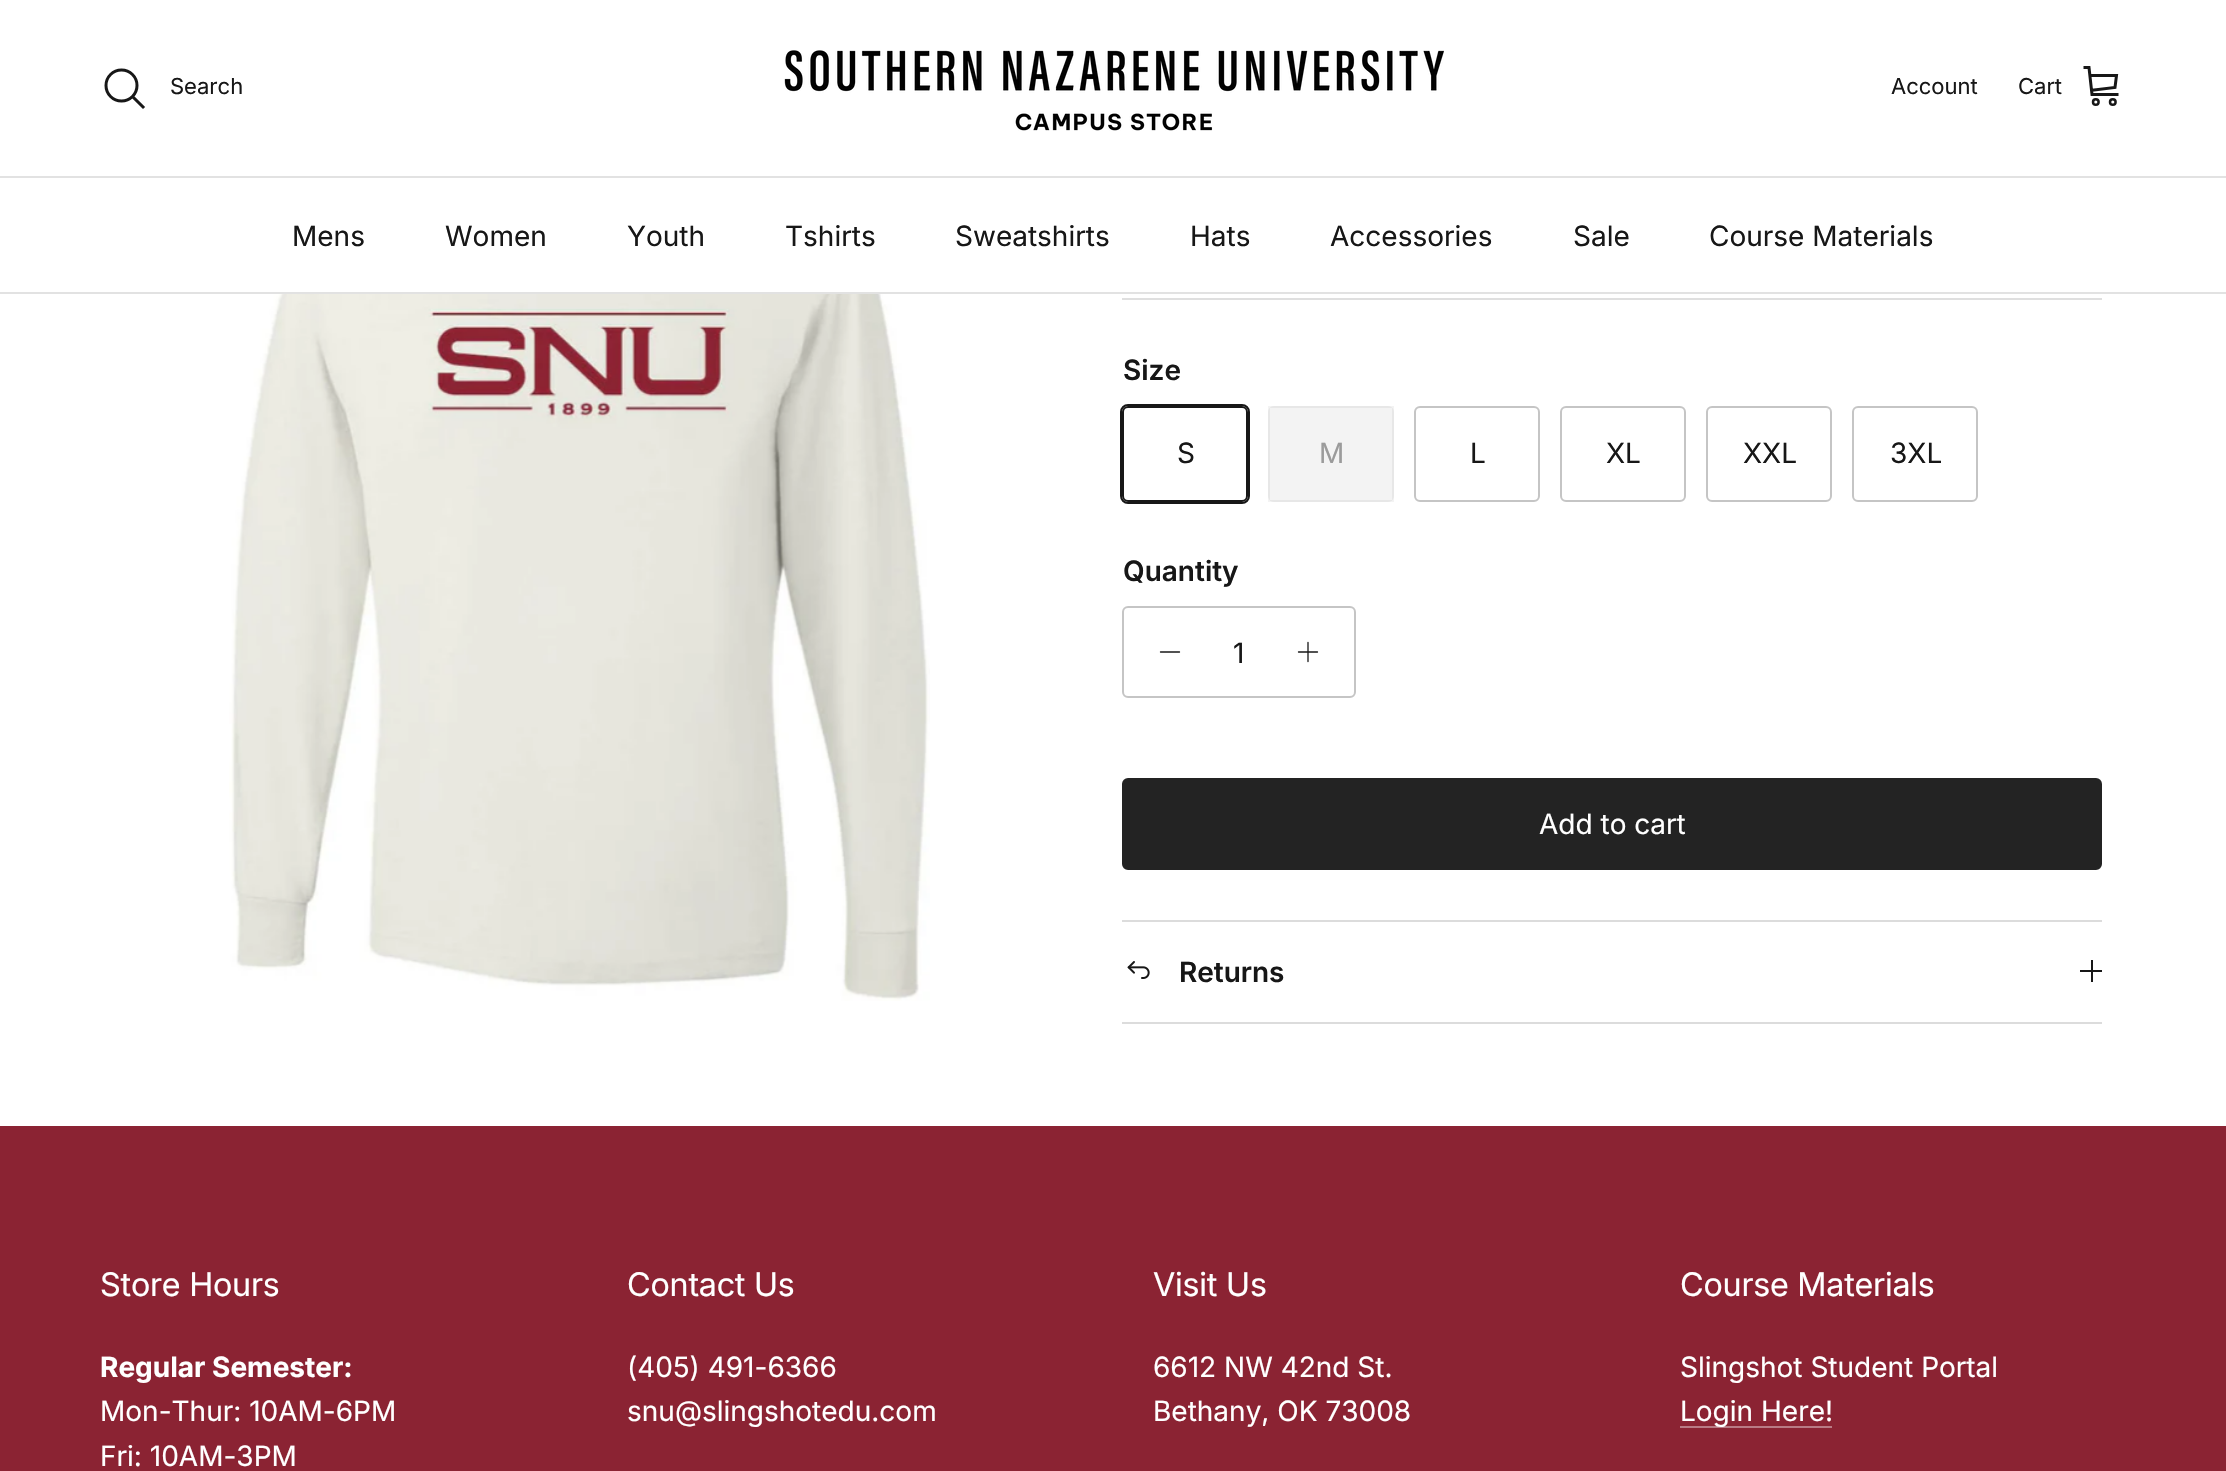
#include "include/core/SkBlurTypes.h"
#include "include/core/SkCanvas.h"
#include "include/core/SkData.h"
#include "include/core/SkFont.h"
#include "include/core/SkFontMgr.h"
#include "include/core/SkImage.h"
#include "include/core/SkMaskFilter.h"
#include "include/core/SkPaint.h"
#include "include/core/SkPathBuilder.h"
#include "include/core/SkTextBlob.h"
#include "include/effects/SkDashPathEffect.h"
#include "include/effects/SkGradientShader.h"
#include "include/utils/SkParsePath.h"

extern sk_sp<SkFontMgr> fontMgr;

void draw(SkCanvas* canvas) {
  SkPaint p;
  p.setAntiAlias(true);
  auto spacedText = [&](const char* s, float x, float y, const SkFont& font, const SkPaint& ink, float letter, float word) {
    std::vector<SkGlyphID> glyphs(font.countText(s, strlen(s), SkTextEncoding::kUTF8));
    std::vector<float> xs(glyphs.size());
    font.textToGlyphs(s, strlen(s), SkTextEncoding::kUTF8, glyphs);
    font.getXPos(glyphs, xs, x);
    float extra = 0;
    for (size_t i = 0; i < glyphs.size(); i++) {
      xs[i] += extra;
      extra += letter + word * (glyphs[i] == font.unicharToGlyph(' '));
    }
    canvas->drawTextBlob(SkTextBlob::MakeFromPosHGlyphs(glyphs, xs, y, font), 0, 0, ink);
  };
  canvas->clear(SK_ColorWHITE);
  p.setColor(SkColorSetRGB(226, 226, 226));
  canvas->drawRect(SkRect::MakeLTRB(0, 176, 2226, 178), p);
  p.setStyle(SkPaint::kStroke_Style);
  p.setStrokeWidth(3);
  p.setColor(SkColorSetRGB(23, 23, 23));
  canvas->drawCircle(121.5f, 85.5f, 15.5f, p);
  p.setStrokeCap(SkPaint::kSquare_Cap);
  canvas->drawPath(SkPathBuilder().moveTo(134, 98).lineTo(143, 107).detach(), p);
  canvas->drawImageRect(SkImages::DeferredFromEncodedData(SkData::MakeFromFileName("images/1.png")), SkRect::MakeLTRB(784, 50, 1444, 131), SkSamplingOptions());
  canvas->drawPath(SkPathBuilder().moveTo(2085, 67.5f).lineTo(2089, 67.5f).lineTo(2092, 94.5f).lineTo(2117, 94.5f).moveTo(2090.5f, 75.5f).lineTo(2116.5f, 75.5f).lineTo(2115, 87.5f).lineTo(2093.5f, 90).detach(), p);
  p.setStrokeWidth(2.5f);
  p.setStrokeCap(SkPaint::kButt_Cap);
  canvas->drawCircle(2095.8f, 102, 2.8f, p);
  canvas->drawCircle(2112.8f, 102, 2.8f, p);
  p.setStyle(SkPaint::kFill_Style);
  p.setColor(SkColorSetRGB(226, 226, 226));
  canvas->drawRect(SkRect::MakeLTRB(0, 292, 2226, 294), p);
  canvas->drawImageRect(SkImages::DeferredFromEncodedData(SkData::MakeFromFileName("images/2.png")), SkRect::MakeLTRB(229, 294, 930, 1001), SkSamplingOptions());
  p.setColor(SkColorSetRGB(223, 223, 223));
  canvas->drawRect(SkRect::MakeLTRB(1122, 298, 2102, 300), p);
  p.setStyle(SkPaint::kStroke_Style);
  p.setStrokeWidth(2);
  p.setColor(SkColorSetRGB(23, 23, 23));
  canvas->drawRoundRect(SkRect::MakeLTRB(1121, 405, 1249, 503), 7, 7, p);
  p.setStyle(SkPaint::kFill_Style);
  p.setColor(SK_ColorWHITE);
  canvas->drawRoundRect(SkRect::MakeLTRB(1123, 407, 1247, 501), 5, 5, p);
  p.setStyle(SkPaint::kStroke_Style);
  p.setColor(SkColorSetRGB(23, 23, 23));
  canvas->drawRoundRect(SkRect::MakeLTRB(1123, 407, 1247, 501), 5, 5, p);
  p.setStyle(SkPaint::kFill_Style);
  p.setColor(SkColorSetRGB(243, 243, 243));
  canvas->drawRoundRect(SkRect::MakeLTRB(1268, 406, 1394, 502), 6, 6, p);
  p.setStyle(SkPaint::kStroke_Style);
  p.setColor(SkColorSetARGB(13, 23, 23, 23));
  canvas->drawRect(SkRect::MakeLTRB(1269, 407, 1393, 501), p);
  p.setColor(SkColorSetRGB(197, 197, 197));
  canvas->drawRoundRect(SkRect::MakeLTRB(1415, 407, 1539, 501), 5, 5, p);
  canvas->drawRoundRect(SkRect::MakeLTRB(1561, 407, 1685, 501), 5, 5, p);
  canvas->drawRoundRect(SkRect::MakeLTRB(1707, 407, 1831, 501), 5, 5, p);
  canvas->drawRoundRect(SkRect::MakeLTRB(1853, 407, 1977, 501), 5, 5, p);
  canvas->drawRoundRect(SkRect::MakeLTRB(1123, 607, 1355, 697), 5, 5, p);
  p.setStrokeWidth(1.3f);
  p.setStrokeCap(SkPaint::kRound_Cap);
  p.setStrokeJoin(SkPaint::kRound_Join);
  p.setColor(SkColorSetRGB(23, 23, 23));
  canvas->drawPath(SkPathBuilder().moveTo(1160.5f, 652).lineTo(1179.5f, 652).detach(), p);
  canvas->drawPath(SkPathBuilder().moveTo(1308, 642.5f).lineTo(1308, 661.5f).moveTo(1298.5f, 652).lineTo(1317.5f, 652).detach(), p);
  p.setStyle(SkPaint::kFill_Style);
  p.setColor(SkColorSetRGB(35, 35, 35));
  canvas->drawRoundRect(SkRect::MakeLTRB(1123, 779, 2101, 869), 5, 5, p);
  p.setStyle(SkPaint::kStroke_Style);
  p.setStrokeWidth(2);
  p.setStrokeCap(SkPaint::kButt_Cap);
  p.setStrokeJoin(SkPaint::kMiter_Join);
  canvas->drawRoundRect(SkRect::MakeLTRB(1123, 779, 2101, 869), 5, 5, p);
  p.setStyle(SkPaint::kFill_Style);
  p.setColor(SkColorSetRGB(220, 220, 220));
  canvas->drawRect(SkRect::MakeLTRB(1122, 920, 2102, 922), p);
  canvas->drawRect(SkRect::MakeLTRB(1122, 1022, 2102, 1024), p);
  canvas->drawImageRect(SkImages::DeferredFromEncodedData(SkData::MakeFromFileName("images/3.png")), SkRect::MakeLTRB(1127, 961, 1150, 979), SkSamplingOptions());
  p.setColor(SkColorSetRGB(23, 23, 23));
  canvas->drawRect(SkRect::MakeLTRB(2091, 960, 2093, 982), p);
  canvas->drawRect(SkRect::MakeLTRB(2080, 970, 2102, 972), p);
  p.setColor(SkColorSetRGB(139, 35, 51));
  canvas->drawRect(SkRect::MakeLTRB(0, 1126, 2226, 1471), p);
  p.setColor(SkColorSetRGB(185, 123, 133));
  canvas->drawRect(SkRect::MakeLTRB(1680, 1426, 1832, 1428), p);
  SkFont font1(fontMgr->matchFamilyStyle("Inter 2", SkFontStyle::Normal()), 22);
  font1.setSubpixel(true);
  p.setColor(SkColorSetRGB(23, 23, 23));
  canvas->drawString("Search", 170, 94, font1, p);
  canvas->drawString("Account", 1891, 94, font1, p);
  canvas->drawString("Cart", 2018, 94, font1, p);
  SkFont font2(fontMgr->matchFamilyStyle("Inter 2", SkFontStyle::Normal()), 28);
  font2.setSubpixel(true);
  canvas->drawString("Mens", 292, 246, font2, p);
  canvas->drawString("Women", 445, 246, font2, p);
  canvas->drawString("Youth", 627, 246, font2, p);
  canvas->drawString("Tshirts", 785, 246, font2, p);
  canvas->drawString("Sweatshirts", 955, 246, font2, p);
  canvas->drawString("Hats", 1190, 246, font2, p);
  canvas->drawString("Accessories", 1330, 246, font2, p);
  canvas->drawString("Sale", 1573, 246, font2, p);
  canvas->drawString("Course Materials", 1709, 246, font2, p);
  SkFont font3(fontMgr->matchFamilyStyle("Inter", SkFontStyle(600, SkFontStyle::kNormal_Width, SkFontStyle::kUpright_Slant)), 28);
  font3.setSubpixel(true);
  canvas->drawString("Size", 1123, 380, font3, p);
  canvas->drawString("S", 1177, 463, font2, p);
  p.setColor(SkColorSetRGB(155, 155, 155));
  canvas->drawString("M", 1319, 463, font2, p);
  p.setColor(SkColorSetRGB(23, 23, 23));
  canvas->drawString("L", 1470, 463, font2, p);
  canvas->drawString("XL", 1606, 463, font2, p);
  canvas->drawString("XXL", 1743, 463, font2, p);
  canvas->drawString("3XL", 1890, 463, font2, p);
  canvas->drawString("Quantity", 1123, 581, font3, p);
  canvas->drawString("1", 1233, 663, font2, p);
  p.setColor(SK_ColorWHITE);
  canvas->drawString("Add to cart", 1539, 834, font2, p);
  p.setColor(SkColorSetRGB(23, 23, 23));
  canvas->drawString("Returns", 1179, 982, font3, p);
  SkFont font4(fontMgr->matchFamilyStyle("Inter", SkFontStyle::Normal()), 32.5f);
  font4.setSubpixel(true);
  p.setColor(SK_ColorWHITE);
  spacedText("Store Hours", 100, 1296, font4, p, -0.2f, 0);
  SkFont font5(fontMgr->matchFamilyStyle("Inter", SkFontStyle::Bold()), 28);
  font5.setSubpixel(true);
  canvas->drawString("Regular Semester:", 100, 1377, font5, p);
  canvas->drawString("Mon-Thur: 10AM-6PM", 100, 1421, font2, p);
  canvas->drawString("Fri: 10AM-3PM", 100, 1466, font2, p);
  spacedText("Contact Us", 627, 1296, font4, p, -0.2f, 0);
  canvas->drawString("(405) 491-6366", 627, 1377, font2, p);
  canvas->drawString("snu@slingshotedu.com", 627, 1421, font2, p);
  spacedText("Visit Us", 1153, 1296, font4, p, -0.2f, 0);
  canvas->drawString("6612 NW 42nd St.", 1153, 1377, font2, p);
  canvas->drawString("Bethany, OK 73008", 1153, 1421, font2, p);
  spacedText("Course Materials", 1680, 1296, font4, p, -0.2f, 0);
  canvas->drawString("Slingshot Student Portal", 1680, 1377, font2, p);
  canvas->drawString("Login Here!", 1680, 1421, font2, p);
}
